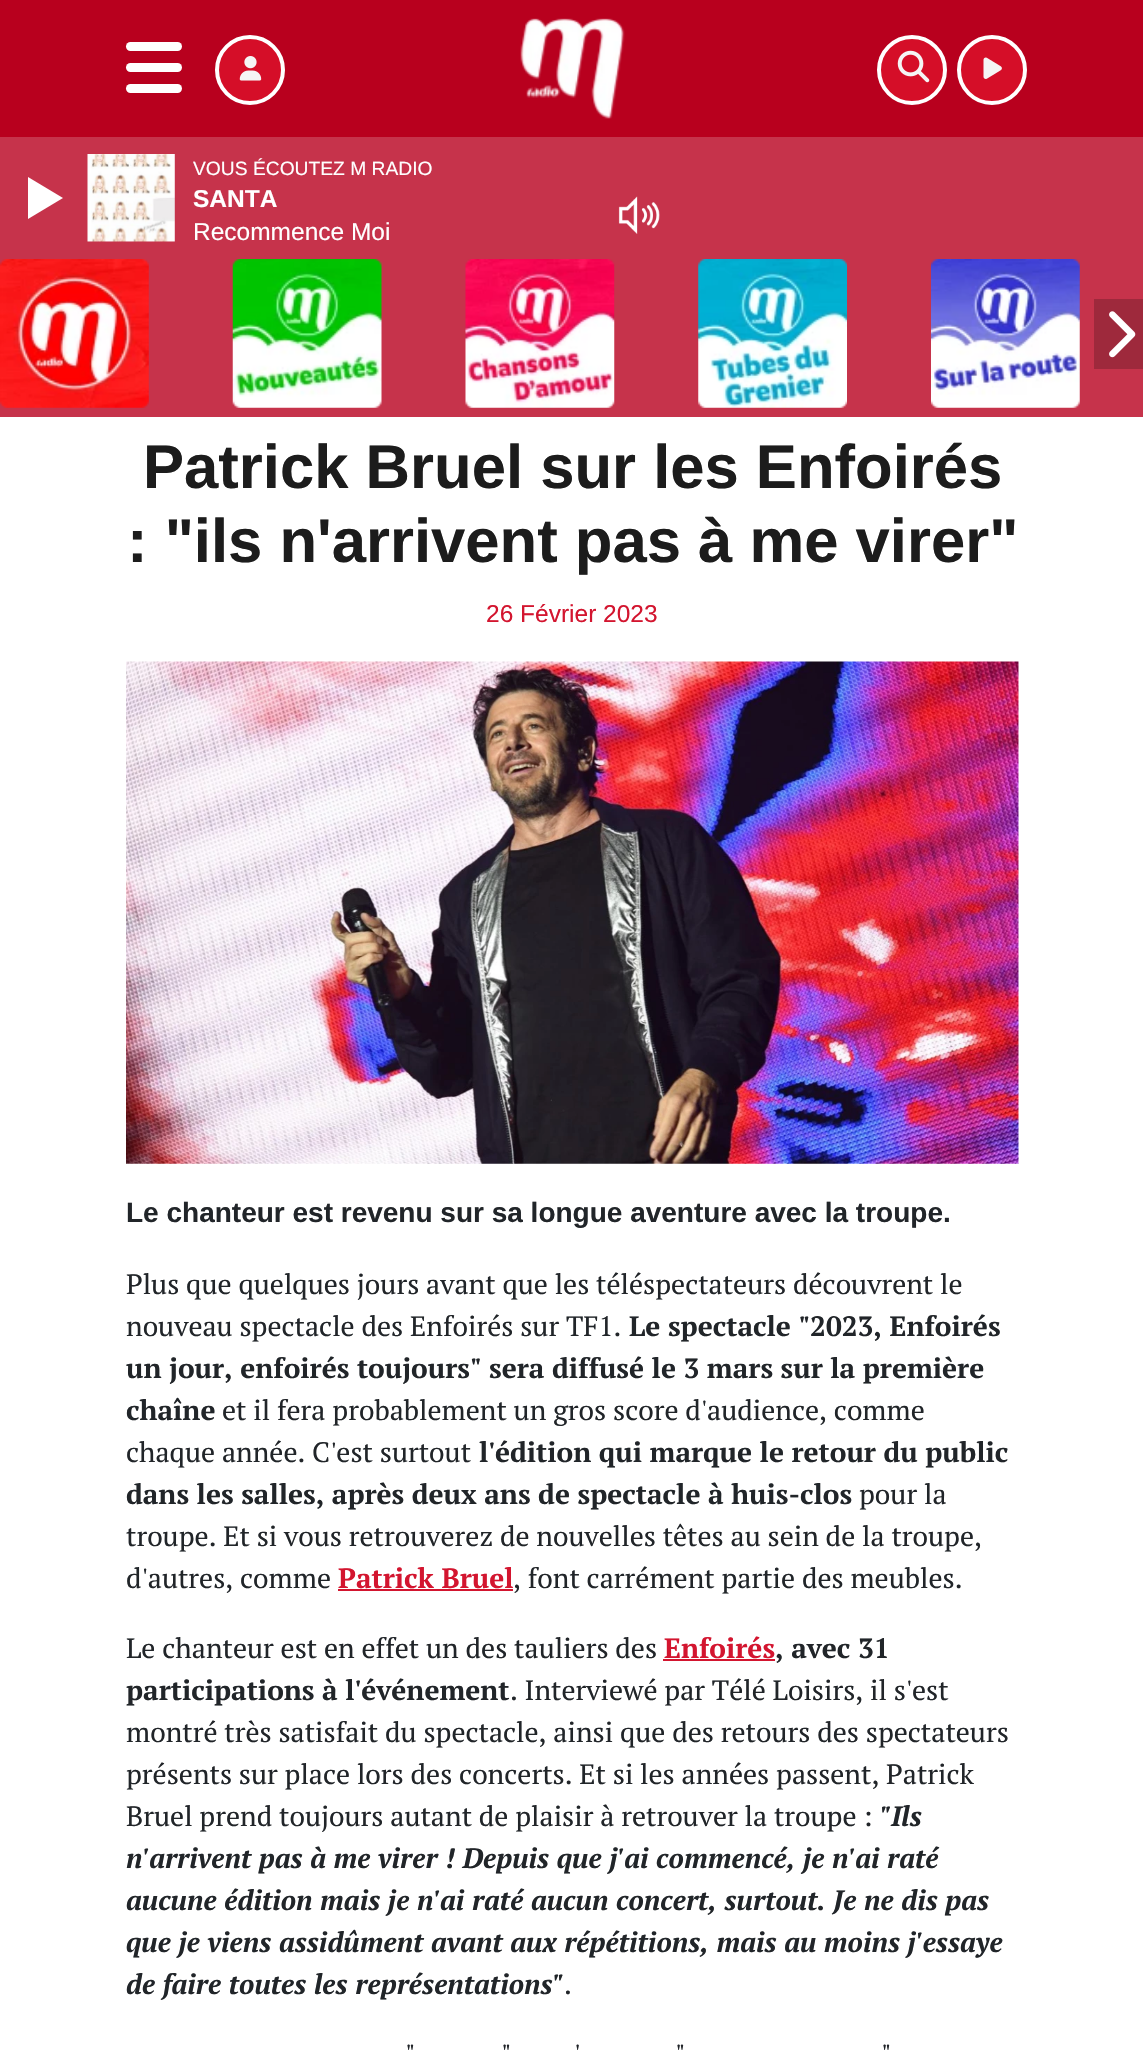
#include "include/core/SkBlurTypes.h"
#include "include/core/SkCanvas.h"
#include "include/core/SkData.h"
#include "include/core/SkFont.h"
#include "include/core/SkFontMgr.h"
#include "include/core/SkImage.h"
#include "include/core/SkMaskFilter.h"
#include "include/core/SkPaint.h"
#include "include/core/SkPathBuilder.h"
#include "include/core/SkTextBlob.h"
#include "include/effects/SkDashPathEffect.h"
#include "include/effects/SkGradientShader.h"
#include "include/utils/SkParsePath.h"

extern sk_sp<SkFontMgr> fontMgr;

void draw(SkCanvas* canvas) {
  SkPaint p;
  p.setAntiAlias(true);
  canvas->clear(SK_ColorWHITE);
  p.setColor(SkColorSetRGB(198, 51, 75));
  canvas->drawRect(SkRect::MakeLTRB(0, 137, 1143, 417), p);
  canvas->drawImageRect(SkImages::DeferredFromEncodedData(SkData::MakeFromFileName("images/1.png")), SkRect::MakeLTRB(87, 154, 175, 242), SkSamplingOptions());
  p.setColor(SK_ColorWHITE);
  canvas->drawPath(SkPathBuilder().moveTo(28, 219).lineTo(28, 177).lineTo(63, 198).close().detach(), p);
  canvas->drawImageRect(SkImages::DeferredFromEncodedData(SkData::MakeFromFileName("images/2.png")), SkRect::MakeLTRB(618, 196, 660, 234), SkSamplingOptions());
  canvas->drawImageRect(SkImages::DeferredFromEncodedData(SkData::MakeFromFileName("images/3.png")), SkRect::MakeLTRB(0, 259, 149, 408), SkSamplingOptions());
  canvas->drawImageRect(SkImages::DeferredFromEncodedData(SkData::MakeFromFileName("images/4.png")), SkRect::MakeLTRB(232, 259, 382, 408), SkSamplingOptions());
  canvas->drawImageRect(SkImages::DeferredFromEncodedData(SkData::MakeFromFileName("images/5.png")), SkRect::MakeLTRB(465, 259, 615, 408), SkSamplingOptions());
  canvas->drawImageRect(SkImages::DeferredFromEncodedData(SkData::MakeFromFileName("images/6.png")), SkRect::MakeLTRB(698, 259, 847, 408), SkSamplingOptions());
  canvas->drawImageRect(SkImages::DeferredFromEncodedData(SkData::MakeFromFileName("images/7.png")), SkRect::MakeLTRB(931, 259, 1080, 408), SkSamplingOptions());
  p.setColor(SkColorSetRGB(158, 41, 60));
  canvas->drawRect(SkRect::MakeLTRB(1094, 299, 1143, 369), p);
  canvas->drawImageRect(SkImages::DeferredFromEncodedData(SkData::MakeFromFileName("images/8.png")), SkRect::MakeLTRB(1109, 311, 1136, 358), SkSamplingOptions());
  p.setColor(SkColorSetRGB(184, 0, 30));
  canvas->drawRect(SkRect::MakeLTRB(0, 0, 1143, 137), p);
  p.setColor(SK_ColorWHITE);
  canvas->drawRoundRect(SkRect::MakeLTRB(126, 42, 182, 51), 4.5f, 4.5f, p);
  canvas->drawRoundRect(SkRect::MakeLTRB(126, 63, 182, 72), 4.5f, 4.5f, p);
  canvas->drawRoundRect(SkRect::MakeLTRB(126, 84, 182, 93), 4.5f, 4.5f, p);
  p.setColor(SkColorSetRGB(213, 14, 40));
  canvas->drawCircle(250, 70, 33, p);
  p.setStyle(SkPaint::kStroke_Style);
  p.setStrokeWidth(4);
  p.setColor(SK_ColorWHITE);
  canvas->drawCircle(250, 70, 33, p);
  canvas->drawImageRect(SkImages::DeferredFromEncodedData(SkData::MakeFromFileName("images/9.png")), SkRect::MakeLTRB(239, 56, 262, 81), SkSamplingOptions());
  canvas->drawImageRect(SkImages::DeferredFromEncodedData(SkData::MakeFromFileName("images/10.png")), SkRect::MakeLTRB(520, 18, 625, 119), SkSamplingOptions());
  p.setStyle(SkPaint::kFill_Style);
  p.setColor(SkColorSetRGB(213, 14, 40));
  canvas->drawCircle(912, 70, 33, p);
  p.setStyle(SkPaint::kStroke_Style);
  p.setColor(SK_ColorWHITE);
  canvas->drawCircle(912, 70, 33, p);
  canvas->drawImageRect(SkImages::DeferredFromEncodedData(SkData::MakeFromFileName("images/11.png")), SkRect::MakeLTRB(897, 50, 930, 83), SkSamplingOptions());
  p.setStyle(SkPaint::kFill_Style);
  p.setColor(SkColorSetRGB(213, 14, 40));
  canvas->drawCircle(992, 70, 33, p);
  p.setStyle(SkPaint::kStroke_Style);
  p.setColor(SK_ColorWHITE);
  canvas->drawCircle(992, 70, 33, p);
  canvas->drawImageRect(SkImages::DeferredFromEncodedData(SkData::MakeFromFileName("images/12.png")), SkRect::MakeLTRB(983, 57, 1002, 79), SkSamplingOptions());
  canvas->drawImageRect(SkImages::DeferredFromEncodedData(SkData::MakeFromFileName("images/13.png")), SkRect::MakeLTRB(126, 661, 1019, 1164), SkSamplingOptions());
  p.setStyle(SkPaint::kFill_Style);
  p.setColor(SkColorSetRGB(211, 21, 47));
  canvas->drawRect(SkRect::MakeLTRB(338, 1589, 513, 1591), p);
  canvas->drawRect(SkRect::MakeLTRB(663, 1659, 775, 1661), p);
  SkFont font1(fontMgr->matchFamilyStyle("Liberation Sans", SkFontStyle::Normal()), 19.25f);
  font1.setSubpixel(true);
  p.setColor(SK_ColorWHITE);
  canvas->drawString("VOUS ÉCOUTEZ M RADIO", 193, 175, font1, p);
  SkFont font2(fontMgr->matchFamilyStyle("Liberation Sans", SkFontStyle::Bold()), 24.5f);
  font2.setSubpixel(true);
  canvas->drawString("SANTA", 193, 207, font2, p);
  SkFont font3(fontMgr->matchFamilyStyle("Liberation Sans", SkFontStyle::Normal()), 24.5f);
  font3.setSubpixel(true);
  canvas->drawString("Recommence Moi", 193, 240, font3, p);
  SkFont font4(fontMgr->matchFamilyStyle("Liberation Sans", SkFontStyle::Bold()), 61.6f);
  font4.setSubpixel(true);
  p.setColor(SkColorSetRGB(28, 28, 28));
  canvas->drawString("Patrick Bruel sur les Enfoirés", 143, 488, font4, p);
  canvas->drawString(": \"ils n'arrivent pas à me virer\"", 127, 562, font4, p);
  p.setColor(SkColorSetRGB(211, 21, 47));
  canvas->drawString("26 Février 2023", 486, 622, font3, p);
  SkFont font5(fontMgr->matchFamilyStyle("Liberation Sans", SkFontStyle::Bold()), 28);
  font5.setSubpixel(true);
  p.setColor(SkColorSetRGB(33, 37, 41));
  canvas->drawString("Le chanteur est revenu sur sa longue aventure avec la troupe.", 126, 1222, font5, p);
  SkFont font6(fontMgr->matchFamilyStyle("PT Serif", SkFontStyle::Normal()), 28);
  font6.setSubpixel(true);
  canvas->drawString("Plus que quelques jours avant que les téléspectateurs découvrent le", 126, 1294, font6, p);
  canvas->drawString("nouveau spectacle des Enfoirés sur TF1.", 126, 1336, font6, p);
  SkFont font7(fontMgr->matchFamilyStyle("PT Serif", SkFontStyle::Bold()), 28);
  font7.setSubpixel(true);
  canvas->drawString("Le spectacle \"2023, Enfoirés", 629, 1336, font7, p);
  canvas->drawString("un jour, enfoirés toujours\" sera diffusé le 3 mars sur la première", 126, 1378, font7, p);
  canvas->drawString("chaîne", 126, 1420, font7, p);
  canvas->drawString("et il fera probablement un gros score d'audience, comme", 222, 1420, font6, p);
  canvas->drawString("chaque année. C'est surtout", 126, 1462, font6, p);
  canvas->drawString("l'édition qui marque le retour du public", 479, 1462, font7, p);
  canvas->drawString("dans les salles, après deux ans de spectacle à huis-clos", 126, 1504, font7, p);
  canvas->drawString("pour la", 859, 1504, font6, p);
  canvas->drawString("troupe. Et si vous retrouverez de nouvelles têtes au sein de la troupe,", 126, 1546, font6, p);
  canvas->drawString("d'autres, comme", 126, 1588, font6, p);
  p.setColor(SkColorSetRGB(211, 21, 47));
  canvas->drawString("Patrick Bruel", 338, 1588, font7, p);
  p.setColor(SkColorSetRGB(33, 37, 41));
  canvas->drawString(", font carrément partie des meubles.", 513, 1588, font6, p);
  canvas->drawString("Le chanteur est en effet un des tauliers des", 126, 1658, font6, p);
  p.setColor(SkColorSetRGB(211, 21, 47));
  canvas->drawString("Enfoirés", 664, 1658, font7, p);
  p.setColor(SkColorSetRGB(33, 37, 41));
  canvas->drawString(", avec 31", 775, 1658, font7, p);
  canvas->drawString("participations à l'événement", 126, 1700, font7, p);
  canvas->drawString(". Interviewé par Télé Loisirs, il s'est", 510, 1700, font6, p);
  canvas->drawString("montré très satisfait du spectacle, ainsi que des retours des spectateurs", 126, 1742, font6, p);
  canvas->drawString("présents sur place lors des concerts. Et si les années passent, Patrick", 126, 1784, font6, p);
  canvas->drawString("Bruel prend toujours autant de plaisir à retrouver la troupe :", 126, 1826, font6, p);
  SkFont font8(fontMgr->matchFamilyStyle("PT Serif", SkFontStyle::BoldItalic()), 28);
  font8.setSubpixel(true);
  canvas->drawString("\"Ils", 880, 1826, font8, p);
  canvas->drawString("n'arrivent pas à me virer ! Depuis que j'ai commencé, je n'ai raté", 126, 1868, font8, p);
  canvas->drawString("aucune édition mais je n'ai raté aucun concert, surtout. Je ne dis pas", 126, 1910, font8, p);
  canvas->drawString("que je viens assidûment avant aux répétitions, mais au moins j'essaye", 126, 1952, font8, p);
  canvas->drawString("de faire toutes les représentations\"", 126, 1994, font8, p);
  canvas->drawString(".", 564, 1994, font6, p);
  canvas->drawString("\"", 405, 2064, font6, p);
  canvas->drawString("\"", 501, 2064, font6, p);
  canvas->drawString("'", 574, 2064, font6, p);
  canvas->drawString("\"", 675, 2064, font6, p);
  canvas->drawString("\"", 881, 2064, font6, p);
}
